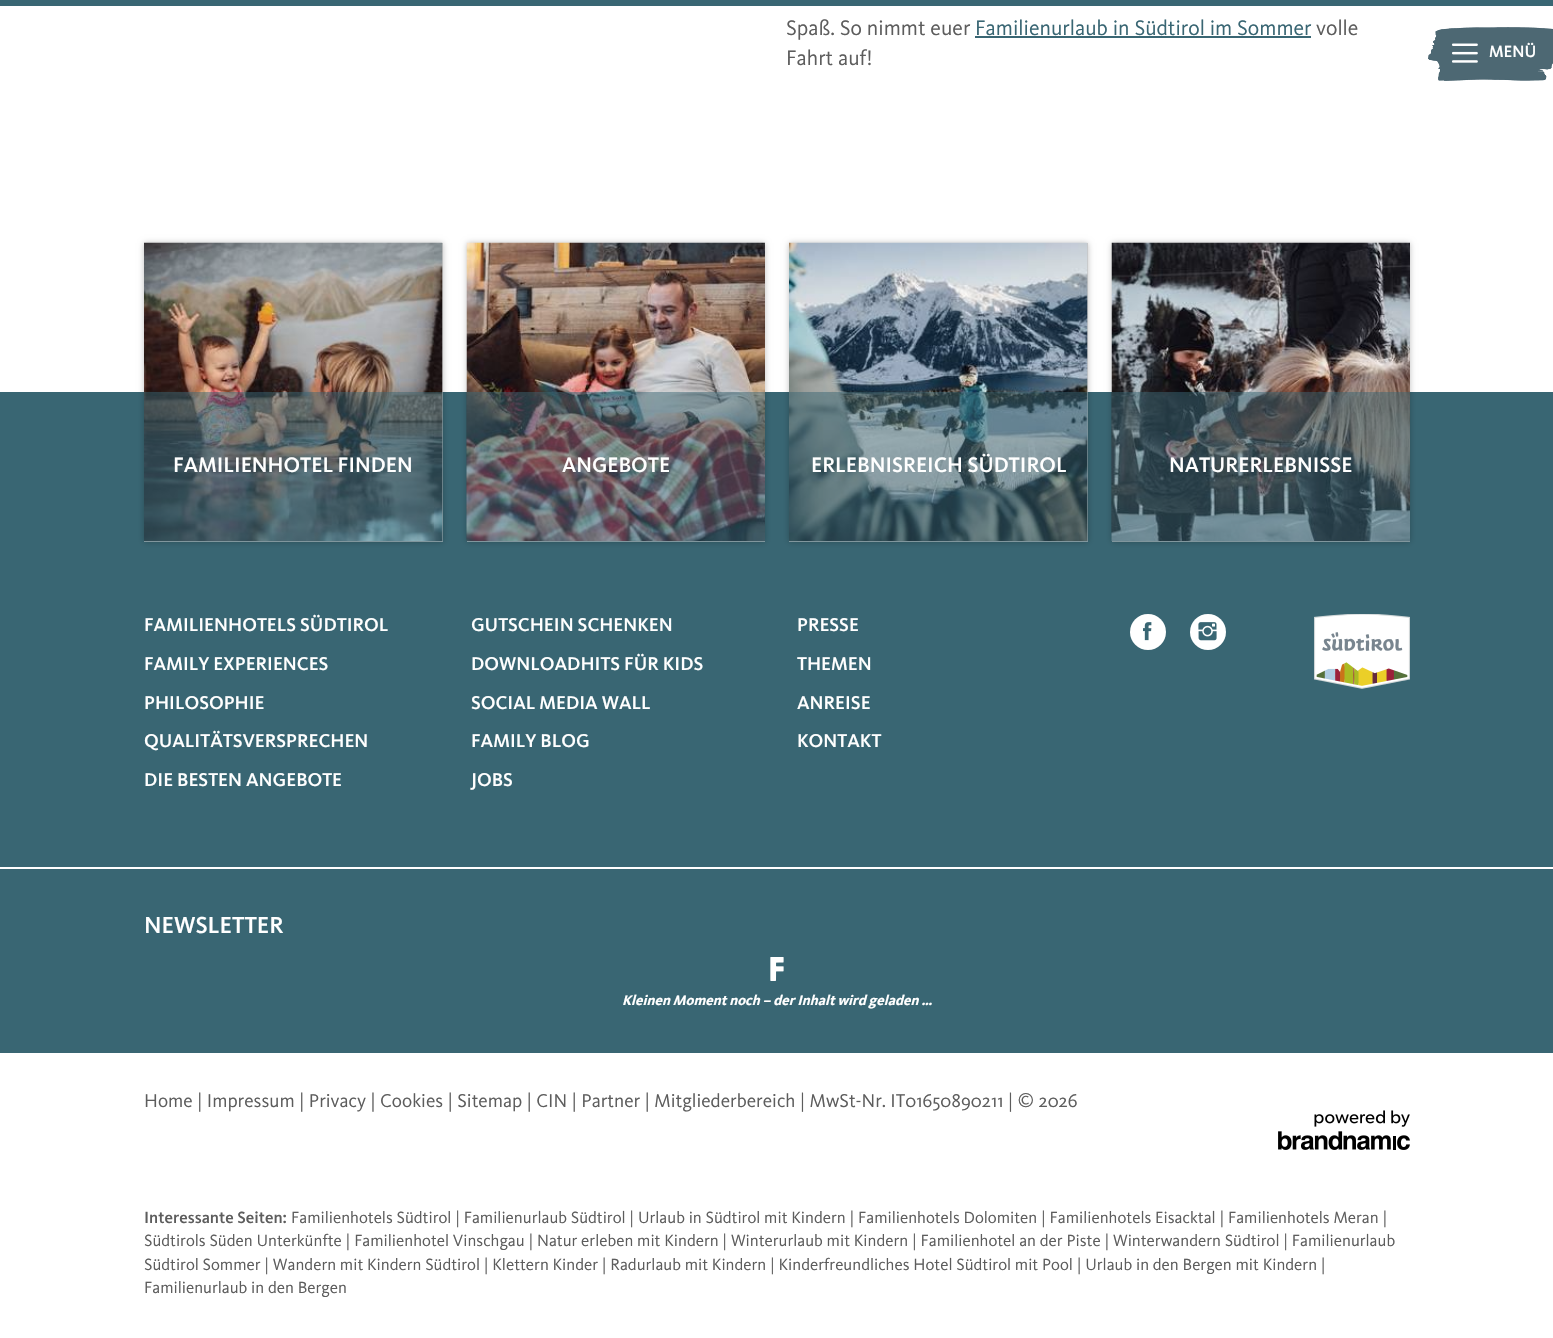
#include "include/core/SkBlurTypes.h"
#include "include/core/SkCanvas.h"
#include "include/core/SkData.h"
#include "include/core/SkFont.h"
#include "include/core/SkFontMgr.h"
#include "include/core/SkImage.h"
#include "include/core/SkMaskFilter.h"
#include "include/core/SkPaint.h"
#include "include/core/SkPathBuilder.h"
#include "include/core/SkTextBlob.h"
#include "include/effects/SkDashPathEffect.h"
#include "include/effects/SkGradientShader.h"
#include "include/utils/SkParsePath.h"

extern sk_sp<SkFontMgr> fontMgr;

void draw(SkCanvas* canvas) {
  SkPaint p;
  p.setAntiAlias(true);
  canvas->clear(SK_ColorWHITE);
  p.setColor(SkColorSetRGB(57, 102, 115));
  canvas->drawRect(SkRect::MakeLTRB(0, 0, 1553, 6), p);
  canvas->drawRect(SkRect::MakeLTRB(975, 36, 1311, 38), p);
  canvas->drawImageRect(SkImages::DeferredFromEncodedData(SkData::MakeFromFileName("images/1.png")), SkRect::MakeLTRB(1428, 27, 1553, 81), SkSamplingOptions());
  canvas->drawImageRect(SkImages::DeferredFromEncodedData(SkData::MakeFromFileName("images/2.png")), SkRect::MakeLTRB(1428, 27, 1553, 81), SkSamplingOptions());
  canvas->drawImageRect(SkImages::DeferredFromEncodedData(SkData::MakeFromFileName("images/3.png")), SkRect::MakeLTRB(1452, 43, 1478, 63), SkSamplingOptions());
  canvas->drawRect(SkRect::MakeLTRB(0, 392, 1553, 867), p);
  p.setColor(SkColorSetARGB(64, 0, 0, 0));
  p.setMaskFilter(SkMaskFilter::MakeBlur(kNormal_SkBlurStyle, 3));
  canvas->drawRect(SkRect::MakeLTRB(144, 243, 443, 542), p);
  p.setMaskFilter(nullptr);
  p.setColor(SkColorSetRGB(198, 198, 198));
  canvas->drawRect(SkRect::MakeLTRB(144, 243, 443, 542), p);
  canvas->drawImageRect(SkImages::DeferredFromEncodedData(SkData::MakeFromFileName("images/4.png")), SkRect::MakeLTRB(144, 242, 443, 541), SkSamplingOptions());
  p.setColor(SkColorSetARGB(128, 57, 102, 115));
  canvas->drawRect(SkRect::MakeLTRB(144, 392, 443, 542), p);
  p.setColor(SkColorSetARGB(64, 0, 0, 0));
  p.setMaskFilter(SkMaskFilter::MakeBlur(kNormal_SkBlurStyle, 3));
  canvas->drawRect(SkRect::MakeLTRB(467, 243, 765, 542), p);
  p.setMaskFilter(nullptr);
  p.setColor(SkColorSetRGB(198, 198, 198));
  canvas->drawRect(SkRect::MakeLTRB(467, 541, 765, 542), p);
  canvas->drawImageRect(SkImages::DeferredFromEncodedData(SkData::MakeFromFileName("images/5.png")), SkRect::MakeLTRB(466, 242, 765, 541), SkSamplingOptions());
  p.setColor(SkColorSetARGB(128, 57, 102, 115));
  canvas->drawRect(SkRect::MakeLTRB(467, 392, 765, 542), p);
  p.setColor(SkColorSetARGB(64, 0, 0, 0));
  p.setMaskFilter(SkMaskFilter::MakeBlur(kNormal_SkBlurStyle, 3));
  canvas->drawRect(SkRect::MakeLTRB(789, 243, 1088, 542), p);
  p.setMaskFilter(nullptr);
  p.setColor(SkColorSetRGB(198, 198, 198));
  canvas->drawRect(SkRect::MakeLTRB(789, 243, 1088, 542), p);
  canvas->drawImageRect(SkImages::DeferredFromEncodedData(SkData::MakeFromFileName("images/6.png")), SkRect::MakeLTRB(789, 242, 1088, 541), SkSamplingOptions());
  p.setColor(SkColorSetARGB(128, 57, 102, 115));
  canvas->drawRect(SkRect::MakeLTRB(789, 392, 1088, 542), p);
  p.setColor(SkColorSetARGB(64, 0, 0, 0));
  p.setMaskFilter(SkMaskFilter::MakeBlur(kNormal_SkBlurStyle, 3));
  canvas->drawRect(SkRect::MakeLTRB(1112, 243, 1410, 542), p);
  p.setMaskFilter(nullptr);
  p.setColor(SkColorSetRGB(198, 198, 198));
  canvas->drawRect(SkRect::MakeLTRB(1112, 541, 1410, 542), p);
  canvas->drawImageRect(SkImages::DeferredFromEncodedData(SkData::MakeFromFileName("images/7.png")), SkRect::MakeLTRB(1111, 242, 1410, 541), SkSamplingOptions());
  p.setColor(SkColorSetARGB(128, 57, 102, 115));
  canvas->drawRect(SkRect::MakeLTRB(1112, 392, 1410, 542), p);
  p.setColor(SK_ColorWHITE);
  canvas->drawCircle(1148, 632, 18, p);
  canvas->drawImageRect(SkImages::DeferredFromEncodedData(SkData::MakeFromFileName("images/8.png")), SkRect::MakeLTRB(1143, 622, 1152, 641), SkSamplingOptions());
  canvas->drawCircle(1208, 632, 18, p);
  canvas->drawImageRect(SkImages::DeferredFromEncodedData(SkData::MakeFromFileName("images/9.png")), SkRect::MakeLTRB(1198, 622, 1217, 641), SkSamplingOptions());
  canvas->drawImageRect(SkImages::DeferredFromEncodedData(SkData::MakeFromFileName("images/10.png")), SkRect::MakeLTRB(1314, 614, 1410, 689), SkSamplingOptions());
  p.setColor(SkColorSetRGB(57, 102, 115));
  canvas->drawRect(SkRect::MakeLTRB(0, 869, 1553, 1053), p);
  canvas->drawImageRect(SkImages::DeferredFromEncodedData(SkData::MakeFromFileName("images/11.png")), SkRect::MakeLTRB(770, 957, 784, 981), SkSamplingOptions());
  canvas->drawImageRect(SkImages::DeferredFromEncodedData(SkData::MakeFromFileName("images/12.png")), SkRect::MakeLTRB(1278, 1110, 1410, 1150), SkSamplingOptions());
  SkFont font1(fontMgr->matchFamilyStyle("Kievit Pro", SkFontStyle::Normal()), 21.6f);
  font1.setSubpixel(true);
  p.setColor(SkColorSetRGB(93, 93, 93));
  canvas->drawString("Spaß. So nimmt euer", 786, 35, font1, p);
  p.setColor(SkColorSetRGB(57, 102, 115));
  canvas->drawString("Familienurlaub in Südtirol im Sommer", 975, 35, font1, p);
  p.setColor(SkColorSetRGB(93, 93, 93));
  canvas->drawString("volle", 1316, 35, font1, p);
  canvas->drawString("Fahrt auf!", 786, 65, font1, p);
  SkFont font2(fontMgr->matchFamilyStyle("Kievit Pro", SkFontStyle(500, SkFontStyle::kNormal_Width, SkFontStyle::kUpright_Slant)), 16.8f);
  font2.setSubpixel(true);
  p.setColor(SK_ColorWHITE);
  canvas->drawString("MENÜ", 1489, 57, font2, p);
  SkFont font3(fontMgr->matchFamilyStyle("Kievit Pro", SkFontStyle(500, SkFontStyle::kNormal_Width, SkFontStyle::kUpright_Slant)), 21.6f);
  font3.setSubpixel(true);
  canvas->drawString("FAMILIENHOTEL FINDEN", 173, 472, font3, p);
  canvas->drawString("ANGEBOTE", 562, 472, font3, p);
  canvas->drawString("ERLEBNISREICH SÜDTIROL", 811, 472, font3, p);
  canvas->drawString("NATURERLEBNISSE", 1169, 472, font3, p);
  SkFont font4(fontMgr->matchFamilyStyle("Kievit Pro", SkFontStyle(500, SkFontStyle::kNormal_Width, SkFontStyle::kUpright_Slant)), 19.2f);
  font4.setSubpixel(true);
  canvas->drawString("FAMILIENHOTELS SÜDTIROL", 144, 631, font4, p);
  canvas->drawString("FAMILY EXPERIENCES", 144, 670, font4, p);
  canvas->drawString("PHILOSOPHIE", 144, 709, font4, p);
  canvas->drawString("QUALITÄTSVERSPRECHEN", 144, 747, font4, p);
  canvas->drawString("DIE BESTEN ANGEBOTE", 144, 786, font4, p);
  canvas->drawString("GUTSCHEIN SCHENKEN", 471, 631, font4, p);
  canvas->drawString("DOWNLOADHITS FÜR KIDS", 471, 670, font4, p);
  canvas->drawString("SOCIAL MEDIA WALL", 471, 709, font4, p);
  canvas->drawString("FAMILY BLOG", 471, 747, font4, p);
  canvas->drawString("JOBS", 471, 786, font4, p);
  canvas->drawString("PRESSE", 797, 631, font4, p);
  canvas->drawString("THEMEN", 797, 670, font4, p);
  canvas->drawString("ANREISE", 797, 709, font4, p);
  canvas->drawString("KONTAKT", 797, 747, font4, p);
  SkFont font5(fontMgr->matchFamilyStyle("Kievit Pro", SkFontStyle(500, SkFontStyle::kNormal_Width, SkFontStyle::kUpright_Slant)), 24);
  font5.setSubpixel(true);
  canvas->drawString("NEWSLETTER", 144, 933, font5, p);
  SkFont font6(fontMgr->matchFamilyStyle("Kievit Pro", SkFontStyle::BoldItalic()), 14.4f);
  font6.setSubpixel(true);
  canvas->drawString("Kleinen Moment noch – der Inhalt wird geladen …", 622, 1005, font6, p);
  SkFont font7(fontMgr->matchFamilyStyle("Kievit Pro", SkFontStyle::Normal()), 19.2f);
  font7.setSubpixel(true);
  p.setColor(SkColorSetRGB(93, 93, 93));
  canvas->drawString("Home | Impressum | Privacy | Cookies | Sitemap | CIN | Partner | Mitgliederbereich | MwSt-Nr. IT01650890211 | © 2026", 144, 1107, font7, p);
  canvas->drawString("Interessante Seiten:", 144, 1223, font2, p);
  SkFont font8(fontMgr->matchFamilyStyle("Kievit Pro", SkFontStyle::Normal()), 16.8f);
  font8.setSubpixel(true);
  canvas->drawString("Familienhotels Südtirol | Familienurlaub Südtirol | Urlaub in Südtirol mit Kindern | Familienhotels Dolomiten | Familienhotels Eisacktal | Familienhotels Meran |", 291, 1223, font8, p);
  canvas->drawString("Südtirols Süden Unterkünfte | Familienhotel Vinschgau | Natur erleben mit Kindern | Winterurlaub mit Kindern | Familienhotel an der Piste | Winterwandern Südtirol | Familienurlaub", 144, 1246, font8, p);
  canvas->drawString("Südtirol Sommer | Wandern mit Kindern Südtirol | Klettern Kinder | Radurlaub mit Kindern | Kinderfreundliches Hotel Südtirol mit Pool | Urlaub in den Bergen mit Kindern |", 144, 1270, font8, p);
  canvas->drawString("Familienurlaub in den Bergen", 144, 1293, font8, p);
}
